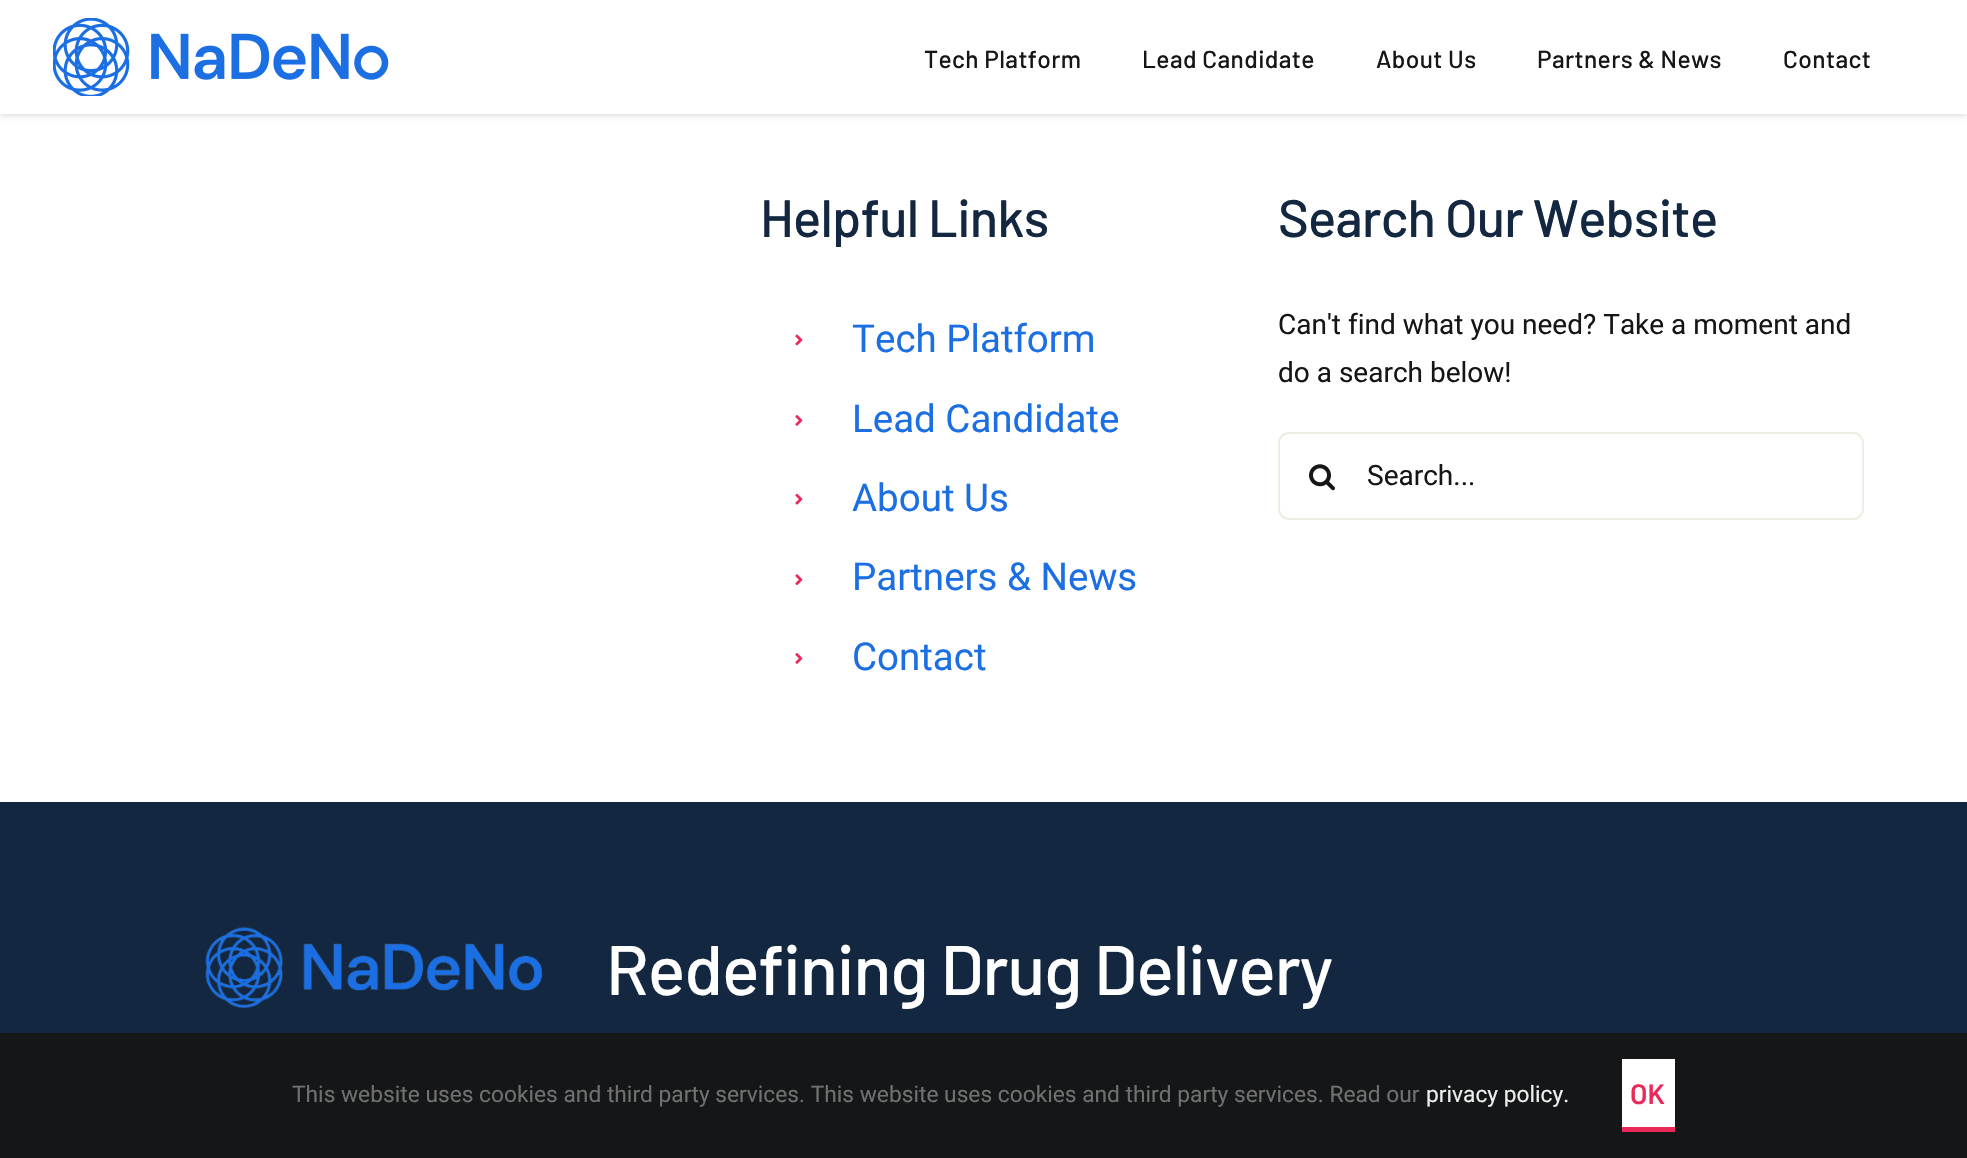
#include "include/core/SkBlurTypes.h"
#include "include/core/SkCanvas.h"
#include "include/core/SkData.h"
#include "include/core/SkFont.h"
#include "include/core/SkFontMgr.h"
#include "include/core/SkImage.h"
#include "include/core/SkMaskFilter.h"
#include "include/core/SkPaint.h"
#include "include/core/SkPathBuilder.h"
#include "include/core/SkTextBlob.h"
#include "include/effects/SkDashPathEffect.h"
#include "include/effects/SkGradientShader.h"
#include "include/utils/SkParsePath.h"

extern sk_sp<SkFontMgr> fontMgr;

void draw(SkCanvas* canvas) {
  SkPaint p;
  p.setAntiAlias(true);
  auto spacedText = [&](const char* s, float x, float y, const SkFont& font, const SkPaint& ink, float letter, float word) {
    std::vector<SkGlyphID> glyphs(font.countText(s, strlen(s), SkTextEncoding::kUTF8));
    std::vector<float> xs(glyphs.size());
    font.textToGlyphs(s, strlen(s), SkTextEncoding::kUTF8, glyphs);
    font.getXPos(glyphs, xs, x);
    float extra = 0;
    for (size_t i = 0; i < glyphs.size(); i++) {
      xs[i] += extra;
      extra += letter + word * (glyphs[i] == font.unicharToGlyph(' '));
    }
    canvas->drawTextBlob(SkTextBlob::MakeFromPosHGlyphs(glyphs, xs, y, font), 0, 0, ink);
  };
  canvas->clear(SK_ColorWHITE);
  canvas->save();
  canvas->clipPath(SkPathBuilder(SkPathFillType::kEvenOdd).moveTo(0, 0).lineTo(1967, 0).lineTo(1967, 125).lineTo(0, 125).close().moveTo(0, 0).lineTo(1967, 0).lineTo(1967, 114).lineTo(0, 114).close().detach(), true);
  p.setColor(SkColorSetARGB(31, 0, 0, 0));
  p.setMaskFilter(SkMaskFilter::MakeBlur(kNormal_SkBlurStyle, 2.5f));
  canvas->drawRect(SkRect::MakeLTRB(0, 2, 1967, 116), p);
  p.setMaskFilter(nullptr);
  canvas->restore();
  p.setColor(SkColorSetARGB(219, 255, 255, 255));
  canvas->drawRect(SkRect::MakeLTRB(0, 113, 1967, 114), p);
  canvas->drawImageRect(SkImages::DeferredFromEncodedData(SkData::MakeFromFileName("images/1.png")), SkRect::MakeLTRB(53, 18, 389, 96), SkSamplingOptions());
  canvas->drawImageRect(SkImages::DeferredFromEncodedData(SkData::MakeFromFileName("images/2.png")), SkRect::MakeLTRB(795, 334, 803, 346), SkSamplingOptions());
  canvas->drawImageRect(SkImages::DeferredFromEncodedData(SkData::MakeFromFileName("images/3.png")), SkRect::MakeLTRB(795, 415, 803, 426), SkSamplingOptions());
  canvas->drawImageRect(SkImages::DeferredFromEncodedData(SkData::MakeFromFileName("images/4.png")), SkRect::MakeLTRB(795, 493, 803, 505), SkSamplingOptions());
  canvas->drawImageRect(SkImages::DeferredFromEncodedData(SkData::MakeFromFileName("images/5.png")), SkRect::MakeLTRB(795, 574, 803, 586), SkSamplingOptions());
  canvas->drawImageRect(SkImages::DeferredFromEncodedData(SkData::MakeFromFileName("images/3.png")), SkRect::MakeLTRB(795, 653, 803, 664), SkSamplingOptions());
  p.setStyle(SkPaint::kStroke_Style);
  p.setStrokeWidth(2);
  p.setColor(SkColorSetRGB(239, 236, 227));
  canvas->drawRoundRect(SkRect::MakeLTRB(1279, 433, 1863, 519), 10, 10, p);
  canvas->drawImageRect(SkImages::DeferredFromEncodedData(SkData::MakeFromFileName("images/6.png")), SkRect::MakeLTRB(1309, 464, 1335, 491), SkSamplingOptions());
  p.setStyle(SkPaint::kFill_Style);
  p.setColor(SkColorSetRGB(19, 40, 64));
  canvas->drawRect(SkRect::MakeLTRB(0, 802, 1967, 1033), p);
  canvas->drawImageRect(SkImages::DeferredFromEncodedData(SkData::MakeFromFileName("images/7.png")), SkRect::MakeLTRB(205, 927, 543, 1008), SkSamplingOptions());
  p.setColor(SkColorSetRGB(20, 22, 23));
  canvas->drawRect(SkRect::MakeLTRB(0, 1033, 1967, 1158), p);
  p.setColor(SK_ColorWHITE);
  canvas->drawRect(SkRect::MakeLTRB(1622, 1059, 1675, 1127), p);
  p.setColor(SkColorSetRGB(235, 40, 90));
  canvas->drawRect(SkRect::MakeLTRB(1622, 1127, 1675, 1132), p);
  SkFont font1(fontMgr->matchFamilyStyle("Barlow", SkFontStyle(500, SkFontStyle::kNormal_Width, SkFontStyle::kUpright_Slant)), 24.5f);
  font1.setSubpixel(true);
  p.setColor(SkColorSetRGB(20, 22, 23));
  spacedText("Tech Platform", 924, 68, font1, p, 0.4f, 0);
  spacedText("Lead Candidate", 1142, 68, font1, p, 0.4f, 0);
  spacedText("About Us", 1376, 68, font1, p, 0.4f, 0);
  spacedText("Partners & News", 1537, 68, font1, p, 0.4f, 0);
  spacedText("Contact", 1783, 68, font1, p, 0.4f, 0);
  SkFont font2(fontMgr->matchFamilyStyle("Barlow", SkFontStyle(500, SkFontStyle::kNormal_Width, SkFontStyle::kUpright_Slant)), 52.5f);
  font2.setSubpixel(true);
  p.setColor(SkColorSetRGB(19, 40, 64));
  spacedText("Helpful Links", 760, 237, font2, p, -0.75f, 0);
  SkFont font3(fontMgr->matchFamilyStyle("Roboto", SkFontStyle::Normal()), 38.5f);
  font3.setSubpixel(true);
  p.setColor(SkColorSetRGB(27, 111, 226));
  canvas->drawString("Tech Platform", 852, 352, font3, p);
  canvas->drawString("Lead Candidate", 852, 432, font3, p);
  canvas->drawString("About Us", 852, 511, font3, p);
  canvas->drawString("Partners & News", 852, 590, font3, p);
  canvas->drawString("Contact", 852, 670, font3, p);
  p.setColor(SkColorSetRGB(19, 40, 64));
  spacedText("Search Our Website", 1278, 237, font2, p, -0.75f, 0);
  SkFont font4(fontMgr->matchFamilyStyle("Roboto", SkFontStyle::Normal()), 28);
  font4.setSubpixel(true);
  p.setColor(SkColorSetRGB(20, 22, 23));
  canvas->drawString("Can't find what you need? Take a moment and", 1278, 334, font4, p);
  canvas->drawString("do a search below!", 1278, 382, font4, p);
  canvas->drawString("Search...", 1367, 485, font4, p);
  SkFont font5(fontMgr->matchFamilyStyle("Barlow", SkFontStyle(500, SkFontStyle::kNormal_Width, SkFontStyle::kUpright_Slant)), 70);
  font5.setSubpixel(true);
  p.setColor(SK_ColorWHITE);
  spacedText("Redefining Drug Delivery", 606, 995, font5, p, -1.05f, 0);
  SkFont font6(fontMgr->matchFamilyStyle("Roboto", SkFontStyle::Normal()), 22.75f);
  font6.setSubpixel(true);
  p.setColor(SkColorSetRGB(112, 112, 112));
  canvas->drawString("This website uses cookies and third party services. This website uses cookies and third party services. Read our", 292, 1102, font6, p);
  p.setColor(SkColorSetRGB(239, 239, 239));
  canvas->drawString("privacy policy.", 1426, 1102, font6, p);
  SkFont font7(fontMgr->matchFamilyStyle("Barlow", SkFontStyle(600, SkFontStyle::kNormal_Width, SkFontStyle::kUpright_Slant)), 28);
  font7.setSubpixel(true);
  p.setColor(SkColorSetRGB(235, 40, 90));
  canvas->drawString("OK", 1630, 1104, font7, p);
}
